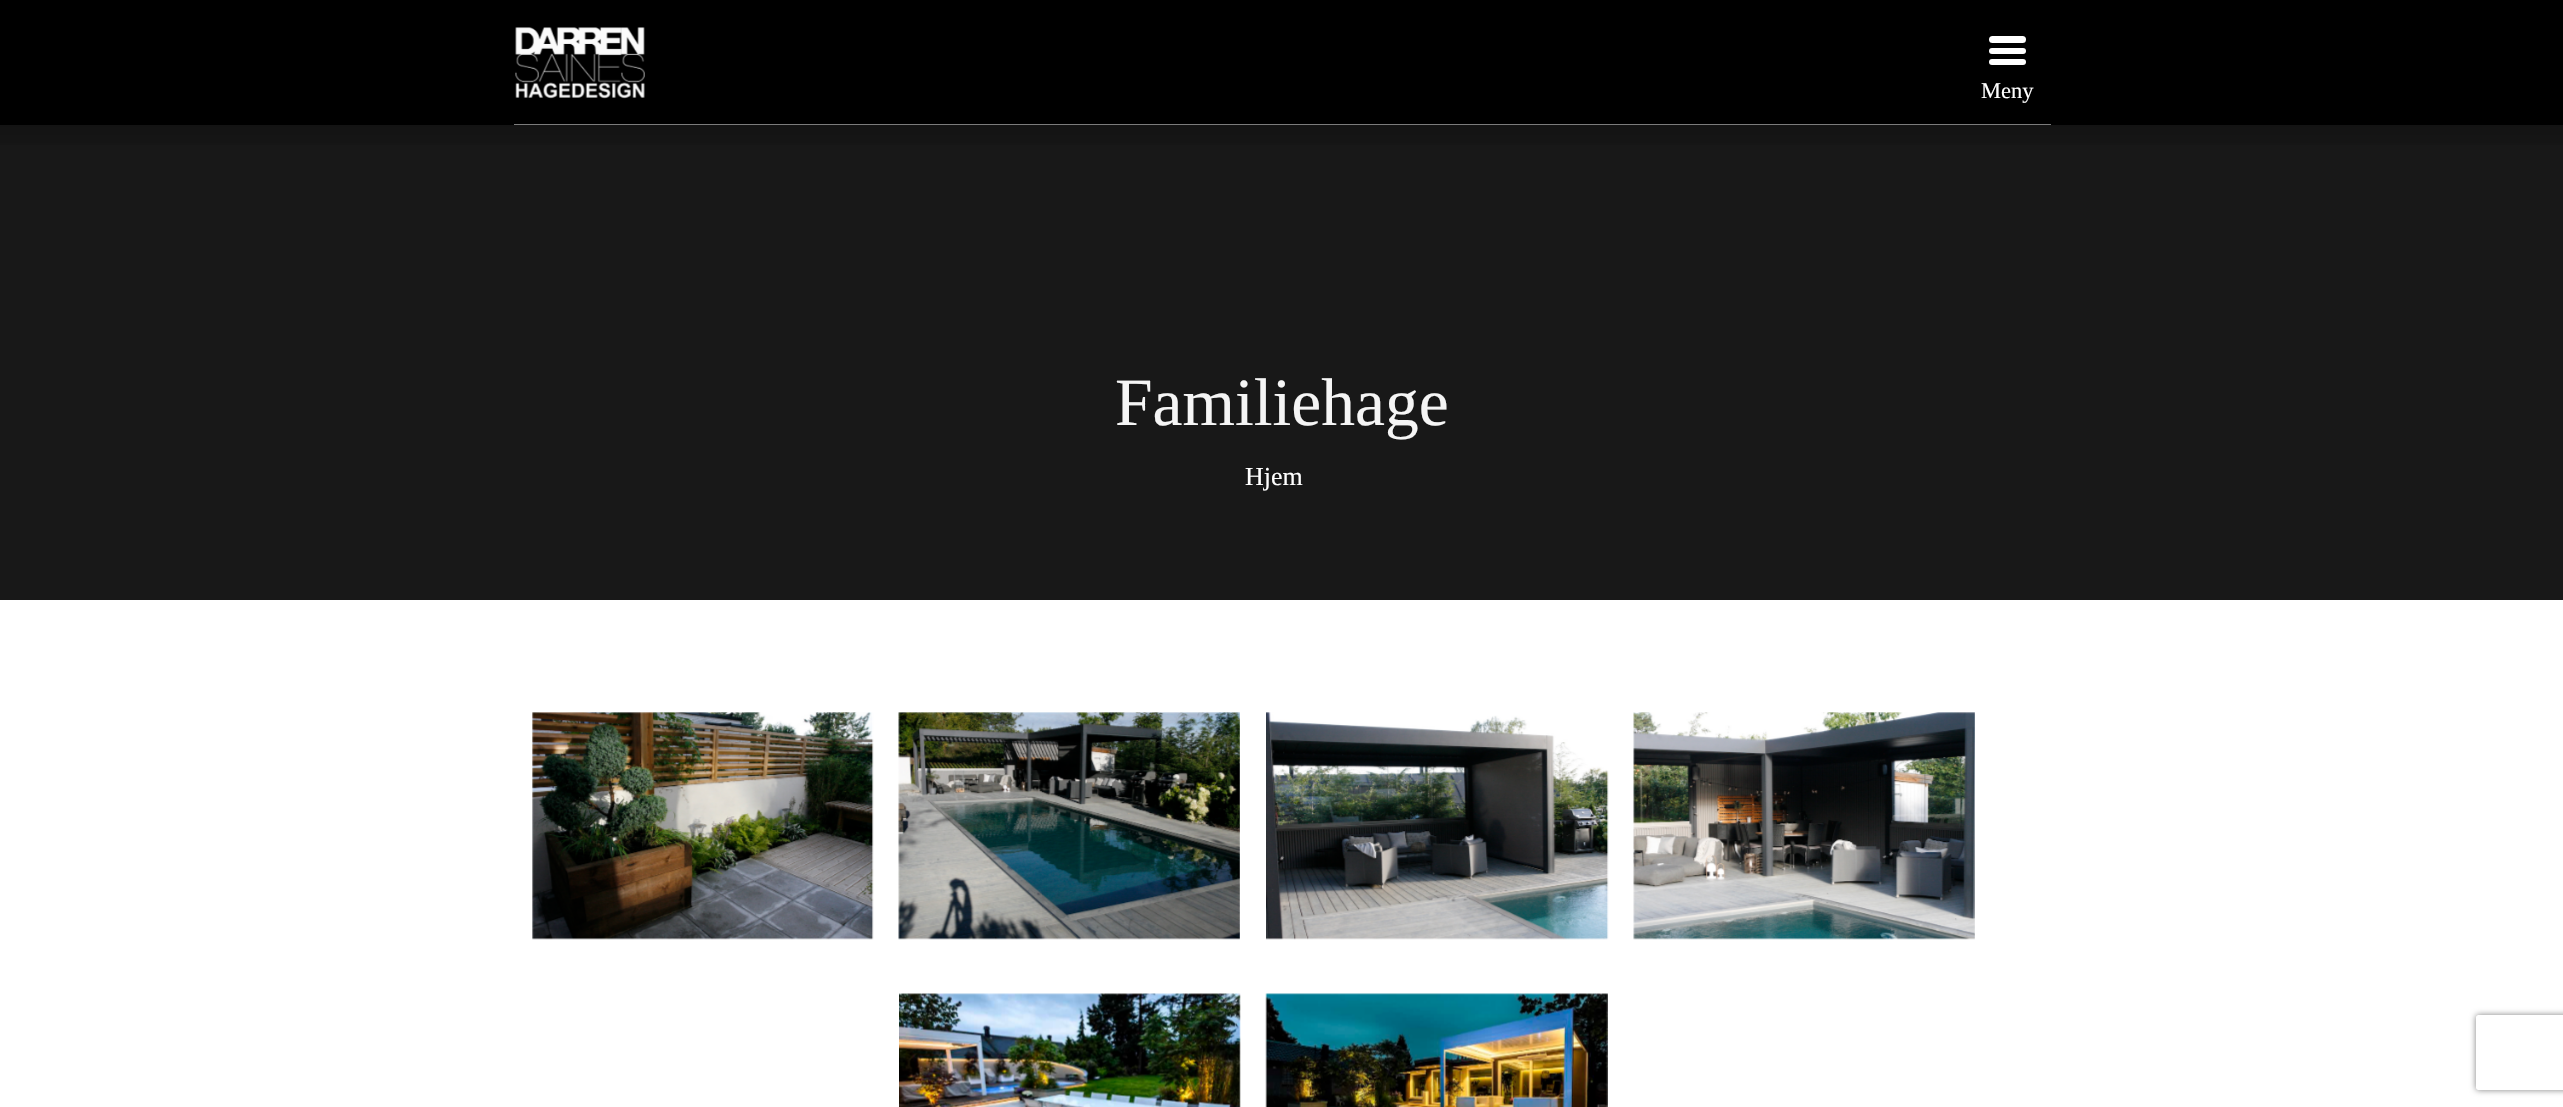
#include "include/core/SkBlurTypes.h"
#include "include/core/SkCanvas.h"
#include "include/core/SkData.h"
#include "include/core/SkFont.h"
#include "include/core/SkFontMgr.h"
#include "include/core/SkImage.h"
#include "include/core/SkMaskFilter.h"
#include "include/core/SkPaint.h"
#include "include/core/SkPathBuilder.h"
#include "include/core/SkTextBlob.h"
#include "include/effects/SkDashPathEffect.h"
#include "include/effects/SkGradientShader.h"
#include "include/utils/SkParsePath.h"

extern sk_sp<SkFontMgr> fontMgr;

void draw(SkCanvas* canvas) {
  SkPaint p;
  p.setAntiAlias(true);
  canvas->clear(SK_ColorWHITE);
  p.setColor(SkColorSetRGB(24, 24, 24));
  canvas->drawRect(SkRect::MakeLTRB(0, 125, 2563, 600), p);
  {
    const SkColor colors[] = {SkColorSetARGB(179, 0, 0, 0), SkColorSetARGB(115, 0, 0, 0), SkColorSetARGB(3, 0, 0, 0)};
    const float stops[] = {0, 0.5f, 1};
    const SkPoint ends[] = {{1282, 0}, {1282, 163}};
    p.setShader(SkGradientShader::MakeLinear(ends, colors, stops, 3, SkTileMode::kClamp));
    p.setAlpha(255);
  }
  canvas->drawRect(SkRect::MakeLTRB(0, 125, 2563, 145), p);
  p.setShader(nullptr);
  p.setColor(SK_ColorBLACK);
  canvas->drawRect(SkRect::MakeLTRB(0, 0, 2563, 125), p);
  p.setColor(SkColorSetRGB(124, 124, 124));
  canvas->drawRect(SkRect::MakeLTRB(514, 124, 2051, 125), p);
  canvas->drawImageRect(SkImages::DeferredFromEncodedData(SkData::MakeFromFileName("images/1.png")), SkRect::MakeLTRB(515, 27, 645, 99), SkSamplingOptions());
  p.setColor(SK_ColorWHITE);
  canvas->drawRoundRect(SkRect::MakeLTRB(1989, 36, 2026, 43), 3.5f, 3.5f, p);
  canvas->drawRoundRect(SkRect::MakeLTRB(1989, 48, 2026, 54), 3, 3, p);
  canvas->drawRoundRect(SkRect::MakeLTRB(1989, 59, 2026, 65), 3, 3, p);
  canvas->drawImageRect(SkImages::DeferredFromEncodedData(SkData::MakeFromFileName("images/2.png")), SkRect::MakeLTRB(532, 712, 874, 940), SkSamplingOptions());
  canvas->drawImageRect(SkImages::DeferredFromEncodedData(SkData::MakeFromFileName("images/3.png")), SkRect::MakeLTRB(898, 712, 1240, 940), SkSamplingOptions());
  canvas->drawImageRect(SkImages::DeferredFromEncodedData(SkData::MakeFromFileName("images/4.png")), SkRect::MakeLTRB(1266, 712, 1609, 940), SkSamplingOptions());
  canvas->drawImageRect(SkImages::DeferredFromEncodedData(SkData::MakeFromFileName("images/5.png")), SkRect::MakeLTRB(1633, 712, 1975, 940), SkSamplingOptions());
  canvas->drawImageRect(SkImages::DeferredFromEncodedData(SkData::MakeFromFileName("images/6.png")), SkRect::MakeLTRB(899, 993, 1241, 1107), SkSamplingOptions());
  canvas->drawImageRect(SkImages::DeferredFromEncodedData(SkData::MakeFromFileName("images/7.png")), SkRect::MakeLTRB(1265, 993, 1608, 1107), SkSamplingOptions());
  canvas->save();
  canvas->clipPath(SkPathBuilder(SkPathFillType::kEvenOdd).moveTo(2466, 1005).lineTo(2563, 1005).lineTo(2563, 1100).lineTo(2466, 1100).close().moveTo(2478.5f, 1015).lineTo(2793.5f, 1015).cubicTo(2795, 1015, 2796, 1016, 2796, 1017.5f).lineTo(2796, 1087.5f).cubicTo(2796, 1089, 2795, 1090, 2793.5f, 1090).lineTo(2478.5f, 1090).cubicTo(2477, 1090, 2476, 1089, 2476, 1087.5f).lineTo(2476, 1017.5f).cubicTo(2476, 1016, 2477, 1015, 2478.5f, 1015).close().detach(), true);
  p.setColor(SkColorSetRGB(128, 128, 128));
  p.setMaskFilter(SkMaskFilter::MakeBlur(kNormal_SkBlurStyle, 3));
  canvas->drawRoundRect(SkRect::MakeLTRB(2476, 1015, 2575, 1090), 2.5f, 2.5f, p);
  p.setMaskFilter(nullptr);
  canvas->restore();
  SkFont font1(fontMgr->matchFamilyStyle("Liberation Serif", SkFontStyle::Normal()), 22.5f);
  font1.setSubpixel(true);
  p.setColor(SK_ColorWHITE);
  canvas->drawString("Meny", 1981, 98, font1, p);
  SkFont font2(fontMgr->matchFamilyStyle("Liberation Serif", SkFontStyle::Normal()), 67.5f);
  font2.setSubpixel(true);
  p.setColor(SkColorSetRGB(245, 245, 245));
  canvas->drawString("Familiehage", 1115, 425, font2, p);
  SkFont font3(fontMgr->matchFamilyStyle("Liberation Serif", SkFontStyle::Normal()), 26);
  font3.setSubpixel(true);
  p.setColor(SK_ColorWHITE);
  canvas->drawString("Hjem", 1245, 485, font3, p);
}
